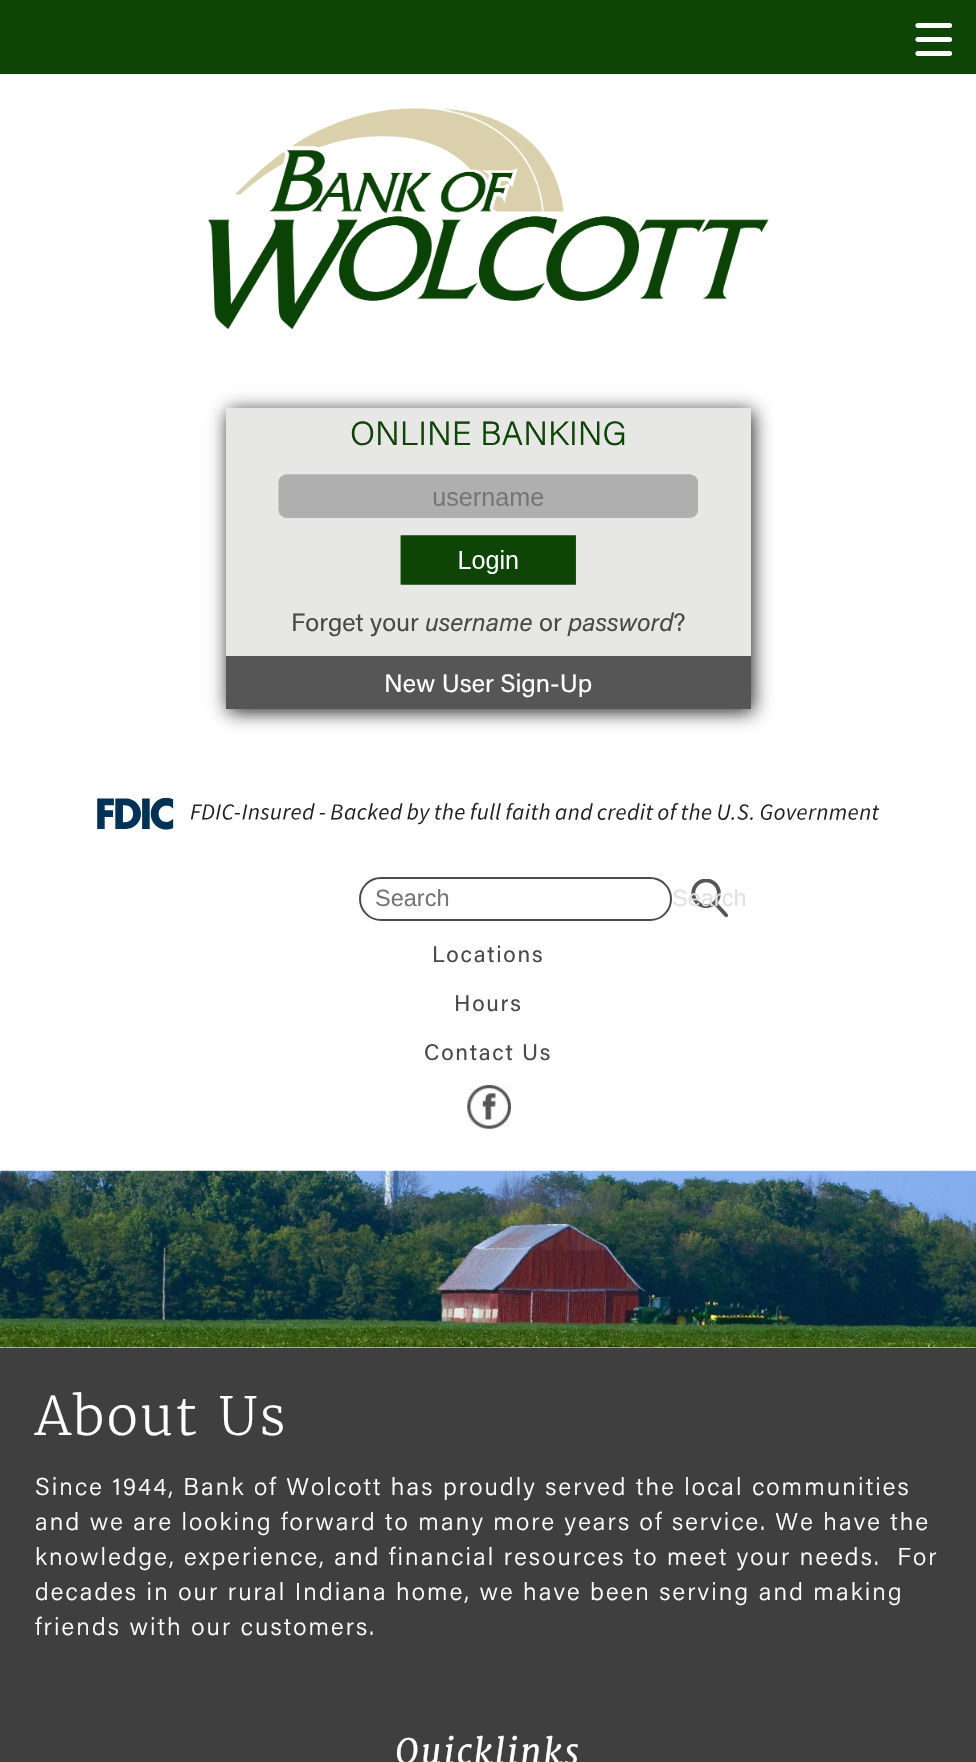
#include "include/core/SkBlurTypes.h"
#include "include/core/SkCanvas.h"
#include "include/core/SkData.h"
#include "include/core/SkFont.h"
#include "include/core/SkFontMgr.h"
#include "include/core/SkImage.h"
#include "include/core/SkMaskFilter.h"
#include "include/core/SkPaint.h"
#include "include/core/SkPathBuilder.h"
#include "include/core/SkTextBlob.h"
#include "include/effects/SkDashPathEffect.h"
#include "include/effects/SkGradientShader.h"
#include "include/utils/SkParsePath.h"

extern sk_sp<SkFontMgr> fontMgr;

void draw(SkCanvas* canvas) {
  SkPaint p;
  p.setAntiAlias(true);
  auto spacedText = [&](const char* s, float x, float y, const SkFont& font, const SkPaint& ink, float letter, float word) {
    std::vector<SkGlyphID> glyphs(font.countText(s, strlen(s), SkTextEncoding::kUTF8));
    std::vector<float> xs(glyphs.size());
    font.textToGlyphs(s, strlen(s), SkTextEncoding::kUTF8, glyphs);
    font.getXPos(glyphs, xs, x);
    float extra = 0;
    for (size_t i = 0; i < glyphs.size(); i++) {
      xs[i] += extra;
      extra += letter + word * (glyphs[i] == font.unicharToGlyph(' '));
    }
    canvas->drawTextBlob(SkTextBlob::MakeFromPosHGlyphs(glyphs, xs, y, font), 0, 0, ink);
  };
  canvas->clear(SK_ColorWHITE);
  p.setColor(SkColorSetRGB(14, 69, 7));
  canvas->drawRect(SkRect::MakeLTRB(0, 0, 976, 74), p);
  canvas->save();
  canvas->clipRect(SkRect::MakeLTRB(915, 23, 952, 28));
  p.setColor(SK_ColorWHITE);
  canvas->drawPath(SkPathBuilder().moveTo(918, 23).cubicTo(914.5f, 23, 914.5f, 28, 918, 28).lineTo(944, 28).cubicTo(945.5f, 28, 954, 29, 952, 24.5f).cubicTo(951.5f, 23.5f, 950.5f, 23, 949.5f, 23).detach(), p);
  canvas->restore();
  canvas->save();
  canvas->clipRect(SkRect::MakeLTRB(915, 37, 952, 42));
  canvas->drawPath(SkPathBuilder().moveTo(918, 37).cubicTo(914.5f, 37, 914.5f, 42, 918, 42).lineTo(944, 42).cubicTo(945.5f, 42, 954, 43, 952, 38.5f).cubicTo(951.5f, 37.5f, 950.5f, 37, 949.5f, 37).detach(), p);
  canvas->restore();
  canvas->save();
  canvas->clipRect(SkRect::MakeLTRB(915, 51, 952, 56));
  canvas->drawPath(SkPathBuilder().moveTo(918, 51).cubicTo(914.5f, 51, 914.5f, 56, 918, 56).lineTo(944, 56).cubicTo(945.5f, 56, 954, 57, 952, 52.5f).cubicTo(951.5f, 51.5f, 950.5f, 51, 949.5f, 51).detach(), p);
  canvas->restore();
  canvas->drawImageRect(SkImages::DeferredFromEncodedData(SkData::MakeFromFileName("images/1.png")), SkRect::MakeLTRB(208, 108, 769, 329), SkSamplingOptions());
  p.setColor(SkColorSetRGB(34, 34, 34));
  p.setMaskFilter(SkMaskFilter::MakeBlur(kNormal_SkBlurStyle, 9));
  canvas->drawRect(SkRect::MakeLTRB(228, 411, 753, 712), p);
  p.setMaskFilter(nullptr);
  p.setColor(SkColorSetRGB(231, 231, 230));
  canvas->drawRect(SkRect::MakeLTRB(226, 408, 751, 656), p);
  canvas->drawImageRect(SkImages::DeferredFromEncodedData(SkData::MakeFromFileName("images/2.png")), SkRect::MakeLTRB(278, 474, 698, 585), SkSamplingOptions());
  p.setColor(SkColorSetRGB(86, 86, 86));
  canvas->drawRect(SkRect::MakeLTRB(226, 656, 751, 709), p);
  canvas->drawImageRect(SkImages::DeferredFromEncodedData(SkData::MakeFromFileName("images/3.png")), SkRect::MakeLTRB(97, 797, 880, 830), SkSamplingOptions());
  p.setStyle(SkPaint::kStroke_Style);
  p.setStrokeWidth(2);
  p.setColor(SkColorSetRGB(74, 74, 74));
  canvas->drawRoundRect(SkRect::MakeLTRB(360, 878, 671, 920), 21, 21, p);
  canvas->drawImageRect(SkImages::DeferredFromEncodedData(SkData::MakeFromFileName("images/4.png")), SkRect::MakeLTRB(691, 879, 728, 917), SkSamplingOptions());
  canvas->drawImageRect(SkImages::DeferredFromEncodedData(SkData::MakeFromFileName("images/5.png")), SkRect::MakeLTRB(467, 1085, 511, 1129), SkSamplingOptions());
  canvas->drawImageRect(SkImages::DeferredFromEncodedData(SkData::MakeFromFileName("images/6.png")), SkRect::MakeLTRB(0, 1170, 976, 1348), SkSamplingOptions());
  p.setStyle(SkPaint::kFill_Style);
  p.setColor(SkColorSetRGB(64, 63, 63));
  canvas->drawRect(SkRect::MakeLTRB(0, 1348, 976, 1762), p);
  SkFont font1(fontMgr->matchFamilyStyle("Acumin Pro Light", SkFontStyle(300, SkFontStyle::kNormal_Width, SkFontStyle::kUpright_Slant)), 33.5f);
  font1.setSubpixel(true);
  p.setColor(SkColorSetRGB(14, 69, 7));
  canvas->drawString("ONLINE BANKING", 350, 445, font1, p);
  SkFont font2(fontMgr->matchFamilyStyle("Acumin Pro", SkFontStyle::Normal()), 25.25f);
  font2.setSubpixel(true);
  p.setColor(SkColorSetRGB(74, 74, 74));
  canvas->drawString("Forget your", 291, 631, font2, p);
  SkFont font3(fontMgr->matchFamilyStyle("Acumin Pro", SkFontStyle::Italic()), 25.25f);
  font3.setSubpixel(true);
  canvas->drawString("username", 425, 631, font3, p);
  canvas->drawString("or", 539, 631, font2, p);
  canvas->drawString("password", 568, 631, font3, p);
  canvas->drawString("?", 673, 631, font2, p);
  p.setColor(SK_ColorWHITE);
  canvas->drawString("New User Sign-Up", 384, 692, font2, p);
  SkFont font4(fontMgr->matchFamilyStyle("Liberation Sans", SkFontStyle::Normal()), 23.5f);
  font4.setSubpixel(true);
  p.setColor(SkColorSetRGB(117, 117, 117));
  canvas->drawString("Search", 375, 906, font4, p);
  p.setColor(SkColorSetRGB(225, 225, 225));
  canvas->drawString("Search", 672, 906, font4, p);
  SkFont font5(fontMgr->matchFamilyStyle("Acumin Pro", SkFontStyle::Normal()), 22.5f);
  font5.setSubpixel(true);
  p.setColor(SkColorSetRGB(74, 74, 74));
  spacedText("Locations", 432, 962, font5, p, 1.75f, 0);
  spacedText("Hours", 454, 1011, font5, p, 1.75f, 0);
  spacedText("Contact Us", 424, 1060, font5, p, 1.75f, 0);
  SkFont font6(fontMgr->matchFamilyStyle("Merriweather", SkFontStyle(300, SkFontStyle::kNormal_Width, SkFontStyle::kUpright_Slant)), 52.5f);
  font6.setSubpixel(true);
  p.setColor(SK_ColorWHITE);
  spacedText("About Us", 35, 1435, font6, p, 2.1f, 0);
  SkFont font7(fontMgr->matchFamilyStyle("Acumin Pro Light", SkFontStyle(300, SkFontStyle::kNormal_Width, SkFontStyle::kUpright_Slant)), 24.5f);
  font7.setSubpixel(true);
  spacedText("Since 1944, Bank of Wolcott has proudly served the local communities", 35, 1495, font7, p, 2.1f, 0);
  spacedText("and we are looking forward to many more years of service. We have the", 35, 1530, font7, p, 2.1f, 0);
  spacedText("knowledge, experience, and financial resources to meet your needs.  For", 35, 1565, font7, p, 2.1f, 0);
  spacedText("decades in our rural Indiana home, we have been serving and making", 35, 1600, font7, p, 2.1f, 0);
  spacedText("friends with our customers.", 35, 1635, font7, p, 2.1f, 0);
  SkFont font8(fontMgr->matchFamilyStyle("Merriweather", SkFontStyle::Italic()), 35);
  font8.setSubpixel(true);
  spacedText("Quicklinks", 395, 1764, font8, p, 2.1f, 0);
}
